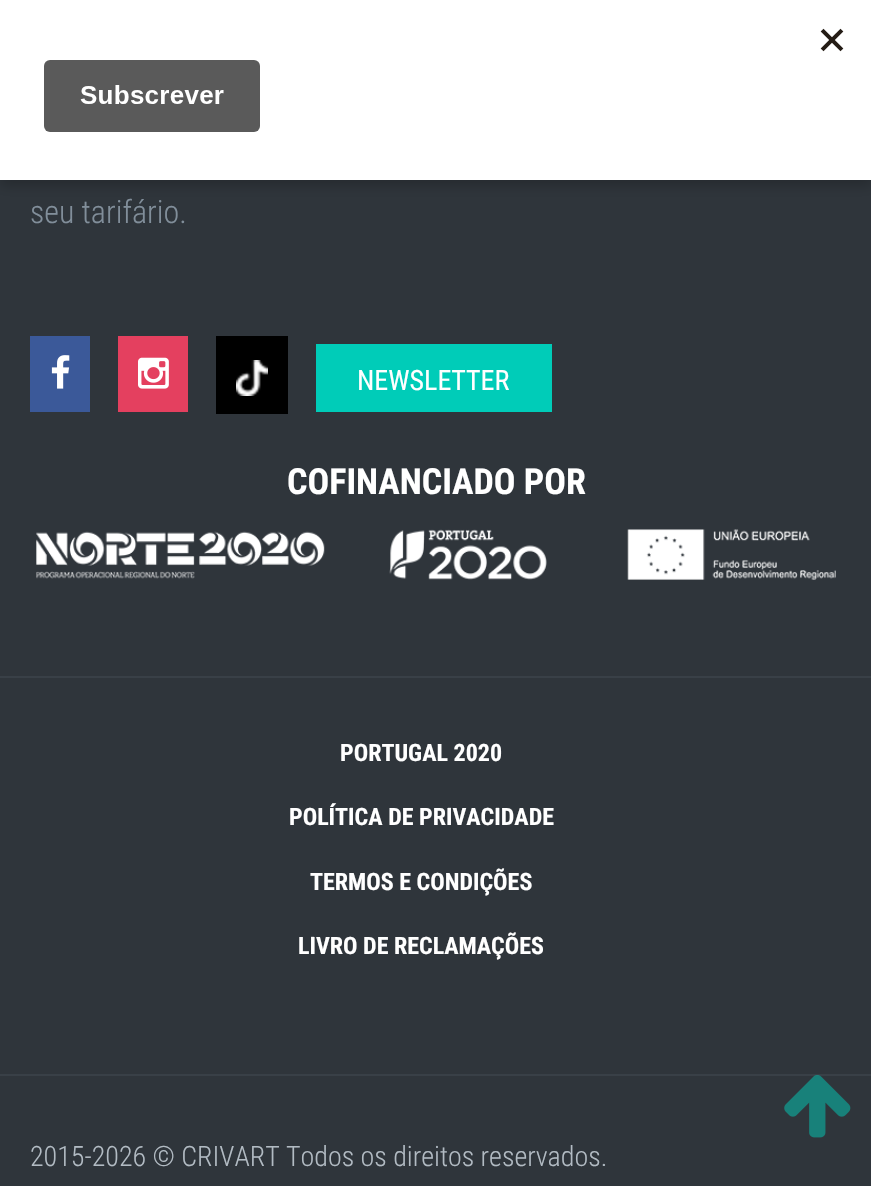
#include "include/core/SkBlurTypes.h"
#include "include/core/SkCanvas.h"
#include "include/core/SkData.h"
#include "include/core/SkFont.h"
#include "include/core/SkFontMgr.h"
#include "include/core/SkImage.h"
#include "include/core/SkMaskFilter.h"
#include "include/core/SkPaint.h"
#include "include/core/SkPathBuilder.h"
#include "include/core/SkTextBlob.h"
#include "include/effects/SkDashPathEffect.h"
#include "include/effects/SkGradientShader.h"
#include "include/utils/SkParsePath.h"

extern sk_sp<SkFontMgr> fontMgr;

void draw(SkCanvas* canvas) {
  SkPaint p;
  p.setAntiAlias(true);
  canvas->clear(SkColorSetRGB(47, 53, 59));
  p.setColor(SkColorSetARGB(51, 0, 0, 0));
  p.setMaskFilter(SkMaskFilter::MakeBlur(kNormal_SkBlurStyle, 6));
  canvas->drawRect(SkRect::MakeLTRB(0, 6, 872, 186), p);
  p.setMaskFilter(nullptr);
  p.setColor(SK_ColorWHITE);
  canvas->drawRect(SkRect::MakeLTRB(0, 0, 871, 180), p);
  canvas->drawImageRect(SkImages::DeferredFromEncodedData(SkData::MakeFromFileName("images/1.png")), SkRect::MakeLTRB(44, 28, 844, 132), SkSamplingOptions());
  p.setColor(SkColorSetRGB(59, 89, 153));
  canvas->drawRect(SkRect::MakeLTRB(30, 336, 90, 412), p);
  canvas->drawImageRect(SkImages::DeferredFromEncodedData(SkData::MakeFromFileName("images/2.png")), SkRect::MakeLTRB(51, 355, 70, 389), SkSamplingOptions());
  p.setColor(SkColorSetRGB(228, 64, 95));
  canvas->drawRect(SkRect::MakeLTRB(118, 336, 188, 412), p);
  canvas->drawImageRect(SkImages::DeferredFromEncodedData(SkData::MakeFromFileName("images/3.png")), SkRect::MakeLTRB(138, 357, 169, 389), SkSamplingOptions());
  p.setColor(SK_ColorBLACK);
  canvas->drawRect(SkRect::MakeLTRB(216, 336, 288, 414), p);
  canvas->drawImageRect(SkImages::DeferredFromEncodedData(SkData::MakeFromFileName("images/4.png")), SkRect::MakeLTRB(236, 360, 268, 396), SkSamplingOptions());
  p.setColor(SkColorSetRGB(0, 204, 184));
  canvas->drawRect(SkRect::MakeLTRB(316, 344, 552, 412), p);
  canvas->drawImageRect(SkImages::DeferredFromEncodedData(SkData::MakeFromFileName("images/5.png")), SkRect::MakeLTRB(36, 529, 836, 580), SkSamplingOptions());
  p.setColor(SkColorSetRGB(57, 64, 71));
  canvas->drawRect(SkRect::MakeLTRB(0, 676, 871, 678), p);
  canvas->drawRect(SkRect::MakeLTRB(0, 1074, 871, 1076), p);
  canvas->drawImageRect(SkImages::DeferredFromEncodedData(SkData::MakeFromFileName("images/6.png")), SkRect::MakeLTRB(784, 1075, 851, 1138), SkSamplingOptions());
  SkFont font1(fontMgr->matchFamilyStyle("Roboto Condensed", SkFontStyle(300, SkFontStyle::kNormal_Width, SkFontStyle::kUpright_Slant)), 32);
  font1.setSubpixel(true);
  p.setColor(SkColorSetRGB(129, 142, 154));
  canvas->drawString("seu tarifário.", 30, 223, font1, p);
  SkFont font2(fontMgr->matchFamilyStyle("Roboto Condensed", SkFontStyle::Normal()), 28);
  font2.setSubpixel(true);
  p.setColor(SK_ColorWHITE);
  canvas->drawString("NEWSLETTER", 357, 390, font2, p);
  SkFont font3(fontMgr->matchFamilyStyle("Roboto Condensed", SkFontStyle::Bold()), 36);
  font3.setSubpixel(true);
  canvas->drawString("COFINANCIADO POR", 287, 494, font3, p);
  SkFont font4(fontMgr->matchFamilyStyle("Roboto Condensed", SkFontStyle::Bold()), 24);
  font4.setSubpixel(true);
  canvas->drawString("PORTUGAL 2020", 340, 761, font4, p);
  canvas->drawString("POLÍTICA DE PRIVACIDADE", 289, 825, font4, p);
  canvas->drawString("TERMOS E CONDIÇÕES", 310, 890, font4, p);
  canvas->drawString("LIVRO DE RECLAMAÇÕES", 298, 954, font4, p);
  SkFont font5(fontMgr->matchFamilyStyle("Roboto Condensed", SkFontStyle(300, SkFontStyle::kNormal_Width, SkFontStyle::kUpright_Slant)), 28);
  font5.setSubpixel(true);
  p.setColor(SkColorSetRGB(178, 187, 195));
  canvas->drawString("2015-2026 © CRIVART Todos os direitos reservados.", 30, 1166, font5, p);
}
